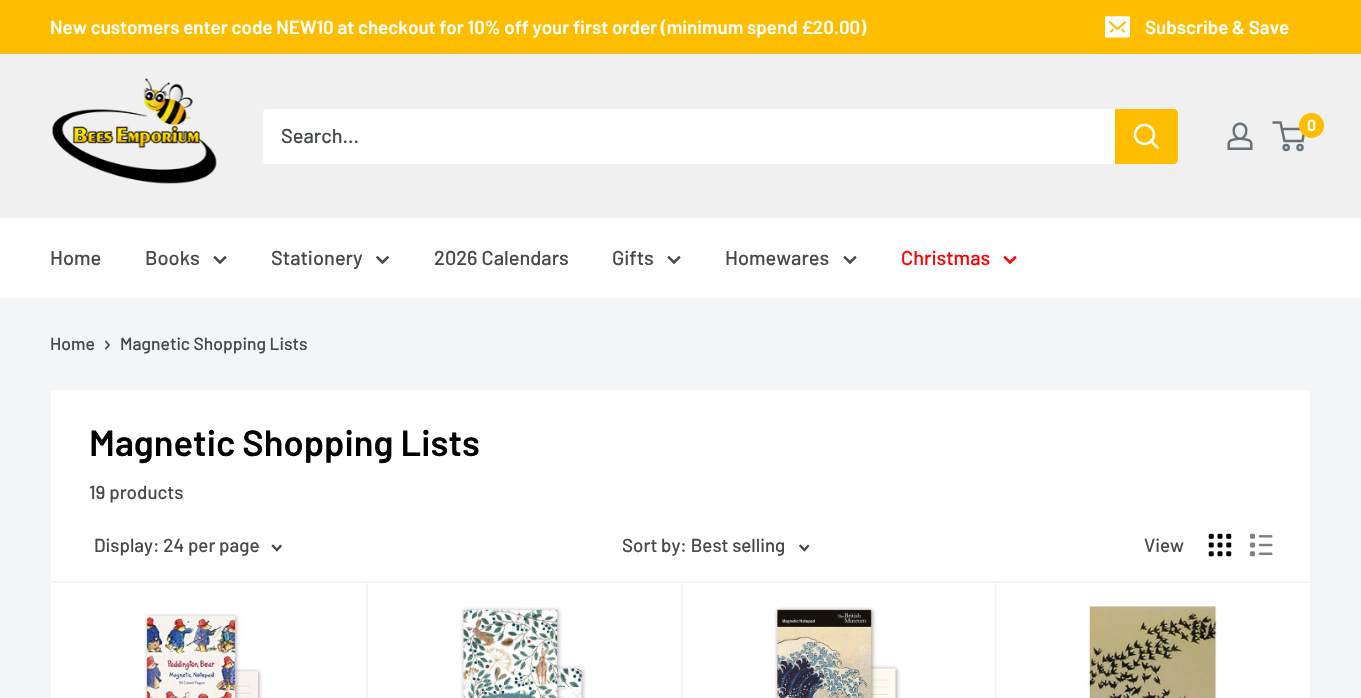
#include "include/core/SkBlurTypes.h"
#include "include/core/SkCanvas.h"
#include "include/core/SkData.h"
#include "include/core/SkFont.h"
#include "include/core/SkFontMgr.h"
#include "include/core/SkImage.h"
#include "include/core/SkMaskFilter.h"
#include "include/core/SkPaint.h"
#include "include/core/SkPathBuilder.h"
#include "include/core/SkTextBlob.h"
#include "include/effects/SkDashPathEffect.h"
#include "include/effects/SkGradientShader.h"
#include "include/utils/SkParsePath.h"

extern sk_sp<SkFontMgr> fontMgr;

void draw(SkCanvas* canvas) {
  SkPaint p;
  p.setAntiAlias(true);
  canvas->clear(SkColorSetRGB(243, 245, 246));
  p.setColor(SkColorSetRGB(255, 189, 0));
  canvas->drawRect(SkRect::MakeLTRB(0, 0, 1361, 53), p);
  p.setColor(SkColorSetRGB(227, 185, 72));
  canvas->drawRect(SkRect::MakeLTRB(0, 53, 1361, 54), p);
  p.setColor(SkColorSetRGB(255, 189, 0));
  canvas->drawPath(SkPathBuilder().moveTo(1086, 1).lineTo(1086, 54).lineTo(1311, 54).lineTo(1311, 52).lineTo(1086, 52).close().detach(), p);
  canvas->drawImageRect(SkImages::DeferredFromEncodedData(SkData::MakeFromFileName("images/1.png")), SkRect::MakeLTRB(1105, 16, 1130, 38), SkSamplingOptions());
  p.setColor(SkColorSetRGB(240, 240, 240));
  canvas->drawRect(SkRect::MakeLTRB(0, 54, 1361, 218), p);
  canvas->drawImageRect(SkImages::DeferredFromEncodedData(SkData::MakeFromFileName("images/2.png")), SkRect::MakeLTRB(52, 78, 217, 184), SkSamplingOptions());
  canvas->drawImageRect(SkImages::DeferredFromEncodedData(SkData::MakeFromFileName("images/3.png")), SkRect::MakeLTRB(1227, 122, 1253, 150), SkSamplingOptions());
  p.setStyle(SkPaint::kStroke_Style);
  p.setStrokeWidth(2.5f);
  p.setColor(SkColorSetRGB(103, 114, 121));
  canvas->drawCircle(1286.2f, 147.5f, 2.5f, p);
  canvas->drawCircle(1300, 147.5f, 2.5f, p);
  canvas->drawPath(SkPathBuilder().moveTo(1281.5f, 129).lineTo(1304.5f, 129).lineTo(1302.5f, 141).lineTo(1284.5f, 141).lineTo(1280.5f, 122.5f).lineTo(1272.5f, 122.5f).detach(), p);
  p.setStyle(SkPaint::kFill_Style);
  p.setColor(SkColorSetRGB(255, 189, 0));
  canvas->drawCircle(1311.5f, 125.5f, 12.5f, p);
  p.setColor(SK_ColorWHITE);
  canvas->drawRoundRect(SkRect::MakeLTRB(263, 109, 1178, 164), 4, 4, p);
  p.setColor(SkColorSetRGB(255, 189, 0));
  canvas->drawPath(SkPathBuilder().moveTo(1115, 109).lineTo(1174, 109).cubicTo(1176, 109, 1178, 111, 1178, 113).lineTo(1178, 160).cubicTo(1178, 162, 1176, 164, 1174, 164).lineTo(1115, 164).close().detach(), p);
  p.setStyle(SkPaint::kStroke_Style);
  p.setStrokeCap(SkPaint::kSquare_Cap);
  p.setColor(SK_ColorWHITE);
  canvas->drawPath(SkPathBuilder().moveTo(1157.5f, 147.5f).lineTo(1151, 141).detach(), p);
  p.setStrokeCap(SkPaint::kButt_Cap);
  canvas->drawCircle(1144.5f, 134.5f, 9.5f, p);
  p.setStyle(SkPaint::kFill_Style);
  canvas->drawRect(SkRect::MakeLTRB(0, 218, 1361, 298), p);
  p.setStyle(SkPaint::kStroke_Style);
  p.setStrokeCap(SkPaint::kSquare_Cap);
  p.setColor(SkColorSetRGB(70, 74, 76));
  canvas->drawPath(SkPathBuilder().moveTo(225, 257.5f).lineTo(220, 262.5f).lineTo(215, 257.5f).detach(), p);
  canvas->drawPath(SkPathBuilder().moveTo(387.5f, 257.5f).lineTo(382.5f, 262.5f).lineTo(377.5f, 257.5f).detach(), p);
  canvas->drawPath(SkPathBuilder().moveTo(679, 257.5f).lineTo(674, 262.5f).lineTo(669, 257.5f).detach(), p);
  canvas->drawPath(SkPathBuilder().moveTo(855, 257.5f).lineTo(850, 262.5f).lineTo(845, 257.5f).detach(), p);
  p.setColor(SkColorSetRGB(255, 0, 0));
  canvas->drawPath(SkPathBuilder().moveTo(1015, 257.5f).lineTo(1010, 262.5f).lineTo(1005, 257.5f).detach(), p);
  p.setStrokeWidth(1.7f);
  p.setColor(SkColorSetRGB(70, 74, 76));
  canvas->drawPath(SkPathBuilder().moveTo(106, 341.5f).lineTo(109, 345).lineTo(106, 348.5f).detach(), p);
  p.setStyle(SkPaint::kFill_Style);
  p.setColor(SK_ColorWHITE);
  canvas->drawRoundRect(SkRect::MakeLTRB(50.5f, 389.5f, 1310.5f, 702.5f), 3.5f, 3.5f, p);
  p.setStyle(SkPaint::kStroke_Style);
  p.setStrokeWidth(1);
  p.setStrokeCap(SkPaint::kButt_Cap);
  p.setColor(SkColorSetRGB(243, 245, 246));
  canvas->drawRoundRect(SkRect::MakeLTRB(50.5f, 389.5f, 1310.5f, 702.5f), 3.5f, 3.5f, p);
  p.setStyle(SkPaint::kFill_Style);
  canvas->drawPath(SkPathBuilder().moveTo(55, 581).lineTo(368, 581).lineTo(368, 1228).lineTo(53, 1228).lineTo(366, 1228).lineTo(366, 581).lineTo(54, 581).close().detach(), p);
  canvas->drawPath(SkPathBuilder().moveTo(368, 581).lineTo(683, 581).lineTo(683, 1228).lineTo(368, 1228).lineTo(681, 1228).lineTo(681, 581).close().detach(), p);
  canvas->drawPath(SkPathBuilder().moveTo(683, 581).lineTo(996, 581).lineTo(996, 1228).lineTo(683, 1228).lineTo(995, 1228).lineTo(995, 581).close().detach(), p);
  canvas->drawPath(SkPathBuilder().moveTo(51, 510).lineTo(51, 583).lineTo(1310, 583).lineTo(1310, 581).lineTo(51, 581).close().detach(), p);
  p.setStyle(SkPaint::kStroke_Style);
  p.setStrokeWidth(2.3f);
  p.setStrokeCap(SkPaint::kSquare_Cap);
  p.setColor(SkColorSetRGB(70, 74, 76));
  canvas->drawPath(SkPathBuilder().moveTo(280.5f, 546).lineTo(277, 550).lineTo(273, 546).detach(), p);
  canvas->drawPath(SkPathBuilder().moveTo(808, 546).lineTo(804.5f, 550).lineTo(800.5f, 546).detach(), p);
  canvas->drawImageRect(SkImages::DeferredFromEncodedData(SkData::MakeFromFileName("images/4.png")), SkRect::MakeLTRB(1208, 533, 1232, 557), SkSamplingOptions());
  canvas->drawImageRect(SkImages::DeferredFromEncodedData(SkData::MakeFromFileName("images/5.png")), SkRect::MakeLTRB(1250, 533, 1273, 557), SkSamplingOptions());
  canvas->drawImageRect(SkImages::DeferredFromEncodedData(SkData::MakeFromFileName("images/6.png")), SkRect::MakeLTRB(143, 613, 263, 698), SkSamplingOptions());
  canvas->drawImageRect(SkImages::DeferredFromEncodedData(SkData::MakeFromFileName("images/7.png")), SkRect::MakeLTRB(460, 606, 586, 698), SkSamplingOptions());
  canvas->drawImageRect(SkImages::DeferredFromEncodedData(SkData::MakeFromFileName("images/8.png")), SkRect::MakeLTRB(774, 606, 901, 698), SkSamplingOptions());
  canvas->drawImageRect(SkImages::DeferredFromEncodedData(SkData::MakeFromFileName("images/9.png")), SkRect::MakeLTRB(1087, 606, 1218, 698), SkSamplingOptions());
  SkFont font1(fontMgr->matchFamilyStyle("Barlow", SkFontStyle(600, SkFontStyle::kNormal_Width, SkFontStyle::kUpright_Slant)), 18.75f);
  font1.setSubpixel(true);
  p.setStyle(SkPaint::kFill_Style);
  p.setColor(SK_ColorWHITE);
  canvas->drawString("New customers enter code NEW10 at checkout for 10% off your first order (minimum spend £20.00)", 50, 34, font1, p);
  canvas->drawString("Subscribe & Save", 1145, 34, font1, p);
  SkFont font2(fontMgr->matchFamilyStyle("Barlow", SkFontStyle(600, SkFontStyle::kNormal_Width, SkFontStyle::kUpright_Slant)), 16);
  font2.setSubpixel(true);
  canvas->drawString("0", 1307, 131, font2, p);
  SkFont font3(fontMgr->matchFamilyStyle("Barlow", SkFontStyle(500, SkFontStyle::kNormal_Width, SkFontStyle::kUpright_Slant)), 20);
  font3.setSubpixel(true);
  p.setColor(SkColorSetRGB(70, 74, 76));
  canvas->drawString("Search...", 281, 143, font3, p);
  canvas->drawString("Home", 50, 265, font3, p);
  canvas->drawString("Books", 145, 265, font3, p);
  canvas->drawString("Stationery", 271, 265, font3, p);
  canvas->drawString("2026 Calendars", 434, 265, font3, p);
  canvas->drawString("Gifts", 612, 265, font3, p);
  canvas->drawString("Homewares", 725, 265, font3, p);
  p.setColor(SkColorSetRGB(255, 0, 0));
  canvas->drawString("Christmas", 901, 265, font3, p);
  SkFont font4(fontMgr->matchFamilyStyle("Barlow", SkFontStyle(500, SkFontStyle::kNormal_Width, SkFontStyle::kUpright_Slant)), 17.5f);
  font4.setSubpixel(true);
  p.setColor(SkColorSetRGB(70, 74, 76));
  canvas->drawString("Home", 50, 350, font4, p);
  canvas->drawString("Magnetic Shopping Lists", 120, 350, font4, p);
  SkFont font5(fontMgr->matchFamilyStyle("Barlow", SkFontStyle(600, SkFontStyle::kNormal_Width, SkFontStyle::kUpright_Slant)), 36.25f);
  font5.setSubpixel(true);
  p.setColor(SK_ColorBLACK);
  canvas->drawString("Magnetic Shopping Lists", 89, 456, font5, p);
  SkFont font6(fontMgr->matchFamilyStyle("Barlow", SkFontStyle(500, SkFontStyle::kNormal_Width, SkFontStyle::kUpright_Slant)), 18.75f);
  font6.setSubpixel(true);
  p.setColor(SkColorSetRGB(70, 74, 76));
  canvas->drawString("19 products", 89, 499, font6, p);
  canvas->drawString("Display: 24 per page", 94, 552, font6, p);
  canvas->drawString("Sort by: Best selling", 622, 552, font6, p);
  canvas->drawString("View", 1144, 552, font6, p);
}
